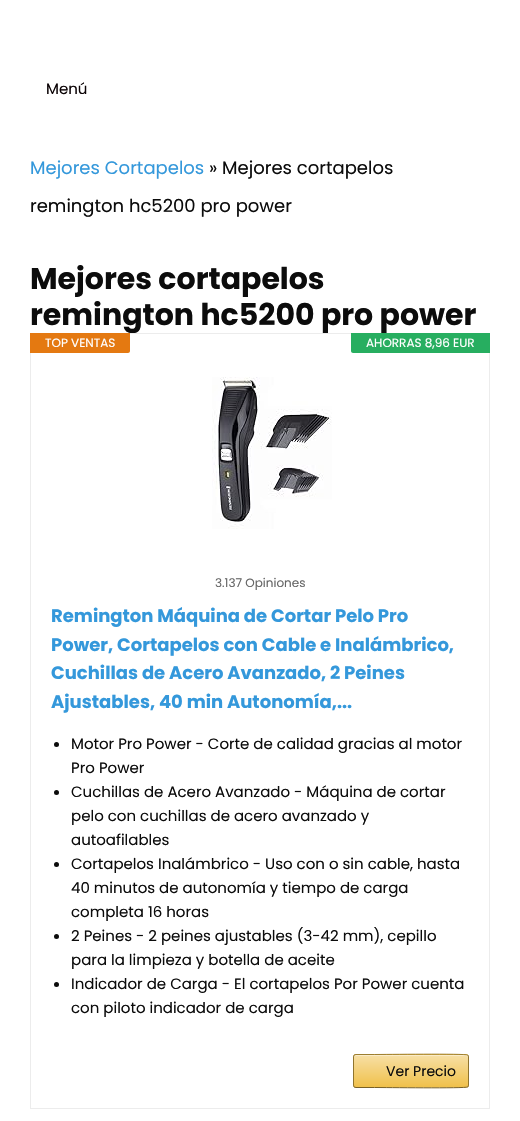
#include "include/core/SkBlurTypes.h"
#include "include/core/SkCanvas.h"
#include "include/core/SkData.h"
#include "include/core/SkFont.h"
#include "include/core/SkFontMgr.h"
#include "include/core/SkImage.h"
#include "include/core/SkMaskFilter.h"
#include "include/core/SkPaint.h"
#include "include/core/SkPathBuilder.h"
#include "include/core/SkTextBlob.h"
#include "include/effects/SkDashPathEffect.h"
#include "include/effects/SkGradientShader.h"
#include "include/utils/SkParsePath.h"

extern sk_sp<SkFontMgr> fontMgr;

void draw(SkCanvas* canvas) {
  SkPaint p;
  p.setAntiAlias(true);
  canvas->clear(SK_ColorWHITE);
  SkFont font1(fontMgr->matchFamilyStyle("Poppins", SkFontStyle::Normal()), 15);
  font1.setSubpixel(true);
  p.setColor(SkColorSetRGB(10, 2, 4));
  canvas->drawString("Menú", 46, 94, font1, p);
  SkFont font2(fontMgr->matchFamilyStyle("Poppins", SkFontStyle::Normal()), 18);
  font2.setSubpixel(true);
  p.setColor(SkColorSetRGB(52, 152, 219));
  canvas->drawString("Mejores Cortapelos", 30, 174, font2, p);
  p.setColor(SkColorSetRGB(12, 12, 12));
  canvas->drawString("» Mejores cortapelos", 209, 174, font2, p);
  canvas->drawString("remington hc5200 pro power", 30, 212, font2, p);
  SkFont font3(fontMgr->matchFamilyStyle("Poppins", SkFontStyle::Bold()), 30);
  font3.setSubpixel(true);
  canvas->drawString("Mejores cortapelos", 30, 289, font3, p);
  canvas->drawString("remington hc5200 pro power", 30, 325, font3, p);
  p.setStyle(SkPaint::kStroke_Style);
  p.setStrokeWidth(1);
  p.setColor(SkColorSetRGB(236, 236, 236));
  canvas->drawRect(SkRect::MakeLTRB(30.5f, 333.5f, 489.5f, 1108.5f), p);
  p.setStyle(SkPaint::kFill_Style);
  p.setColor(SkColorSetRGB(228, 121, 17));
  canvas->drawPath(SkPathBuilder().moveTo(30, 333).lineTo(130, 333).lineTo(130, 351).cubicTo(130, 352, 129, 353, 128, 353).lineTo(30, 353).close().detach(), p);
  SkFont font4(fontMgr->matchFamilyStyle("Poppins", SkFontStyle::Normal()), 12);
  font4.setSubpixel(true);
  p.setColor(SK_ColorWHITE);
  canvas->drawString("TOP VENTAS", 45, 347, font4, p);
  p.setColor(SkColorSetRGB(39, 174, 96));
  canvas->drawPath(SkPathBuilder().moveTo(351, 333).lineTo(490, 333).lineTo(490, 353).lineTo(353, 353).cubicTo(352, 353, 351, 352, 351, 351).close().detach(), p);
  p.setColor(SK_ColorWHITE);
  canvas->drawString("AHORRAS 8,96 EUR", 366, 347, font4, p);
  canvas->drawImageRect(SkImages::DeferredFromEncodedData(SkData::MakeFromFileName("images/1.png")), SkRect::MakeLTRB(212, 377, 332, 529), SkSamplingOptions());
  p.setColor(SkColorSetRGB(102, 102, 102));
  canvas->drawString("3.137 Opiniones", 215, 587, font4, p);
  SkFont font5(fontMgr->matchFamilyStyle("Poppins", SkFontStyle::Bold()), 18);
  font5.setSubpixel(true);
  p.setColor(SkColorSetRGB(52, 152, 219));
  canvas->drawString("Remington Máquina de Cortar Pelo Pro", 51, 622, font5, p);
  canvas->drawString("Power, Cortapelos con Cable e Inalámbrico,", 51, 651, font5, p);
  canvas->drawString("Cuchillas de Acero Avanzado, 2 Peines", 51, 679, font5, p);
  canvas->drawString("Ajustables, 40 min Autonomía,...", 51, 708, font5, p);
  p.setColor(SkColorSetRGB(12, 12, 12));
  canvas->drawCircle(56.5f, 744.5f, 2.5f, p);
  canvas->drawString("Motor Pro Power - Corte de calidad gracias al motor", 71, 749, font1, p);
  canvas->drawString("Pro Power", 71, 773, font1, p);
  canvas->drawCircle(56.5f, 792.5f, 2.5f, p);
  canvas->drawString("Cuchillas de Acero Avanzado - Máquina de cortar", 71, 797, font1, p);
  canvas->drawString("pelo con cuchillas de acero avanzado y", 71, 821, font1, p);
  canvas->drawString("autoafilables", 71, 845, font1, p);
  canvas->drawCircle(56.5f, 864.5f, 2.5f, p);
  canvas->drawString("Cortapelos Inalámbrico - Uso con o sin cable, hasta", 71, 869, font1, p);
  canvas->drawString("40 minutos de autonomía y tiempo de carga", 71, 893, font1, p);
  canvas->drawString("completa 16 horas", 71, 917, font1, p);
  canvas->drawCircle(56.5f, 936.5f, 2.5f, p);
  canvas->drawString("2 Peines - 2 peines ajustables (3-42 mm), cepillo", 71, 941, font1, p);
  canvas->drawString("para la limpieza y botella de aceite", 71, 965, font1, p);
  canvas->drawCircle(56.5f, 984.5f, 2.5f, p);
  canvas->drawString("Indicador de Carga - El cortapelos Por Power cuenta", 71, 989, font1, p);
  canvas->drawString("con piloto indicador de carga", 71, 1013, font1, p);
  canvas->save();
  canvas->clipPath(SkPathBuilder().moveTo(356, 1054).lineTo(466, 1054).cubicTo(467.5f, 1054, 469, 1055.5f, 469, 1057).lineTo(469, 1085).cubicTo(469, 1086.5f, 467.5f, 1088, 466, 1088).lineTo(356, 1088).cubicTo(354.5f, 1088, 353, 1086.5f, 353, 1085).lineTo(353, 1057).cubicTo(353, 1055.5f, 354.5f, 1054, 356, 1054).close().detach(), true);
  {
    const SkColor colors[] = {SkColorSetRGB(247, 223, 165), SkColorSetRGB(240, 193, 75)};
    const float stops[] = {0, 1};
    const SkPoint ends[] = {{411, 1023}, {411, 1055}};
    p.setShader(SkGradientShader::MakeLinear(ends, colors, stops, 2, SkTileMode::kClamp));
    p.setAlpha(255);
  }
  canvas->drawRect(SkRect::MakeLTRB(353, 1054, 469, 1055), p);
  {
    const SkColor colors[] = {SkColorSetRGB(247, 223, 165), SkColorSetRGB(240, 193, 75)};
    const float stops[] = {0, 1};
    const SkPoint ends[] = {{411, 1055}, {411, 1087}};
    p.setShader(SkGradientShader::MakeLinear(ends, colors, stops, 2, SkTileMode::kClamp));
    p.setAlpha(255);
  }
  canvas->drawRect(SkRect::MakeLTRB(353, 1055, 469, 1087), p);
  {
    const SkColor colors[] = {SkColorSetRGB(247, 223, 165), SkColorSetRGB(240, 193, 75)};
    const float stops[] = {0, 1};
    const SkPoint ends[] = {{411, 1087}, {411, 1119}};
    p.setShader(SkGradientShader::MakeLinear(ends, colors, stops, 2, SkTileMode::kClamp));
    p.setAlpha(255);
  }
  canvas->drawRect(SkRect::MakeLTRB(353, 1087, 469, 1088), p);
  canvas->restore();
  p.setShader(nullptr);
  p.setColor(SkColorSetARGB(102, 255, 255, 255));
  canvas->drawPath(SkPathBuilder().moveTo(356, 1056).lineTo(466, 1056).cubicTo(467, 1056, 468, 1057, 468, 1058).cubicTo(468, 1057, 468, 1055, 466, 1055).lineTo(356, 1055).cubicTo(354, 1055, 354, 1057, 354, 1058).cubicTo(354, 1057, 355, 1056, 356, 1056).close().detach(), p);
  p.setStyle(SkPaint::kStroke_Style);
  p.setColor(SkColorSetRGB(156, 126, 49));
  canvas->drawPath(SkPathBuilder().moveTo(354, 1055).lineTo(356, 1054.5f).lineTo(374.5f, 1054.5f).cubicTo(383.5f, 1054.5f, 465.5f, 1053.5f, 467.5f, 1055).lineTo(468, 1055).detach(), p);
  p.setColor(SkColorSetRGB(144, 116, 45));
  canvas->drawPath(SkPathBuilder().moveTo(468, 1055).cubicTo(468, 1055.5f, 468.5f, 1056.5f, 468.5f, 1057).lineTo(468.5f, 1085).cubicTo(468.5f, 1085.5f, 468, 1086.5f, 468, 1087).detach(), p);
  p.setColor(SkColorSetRGB(120, 96, 37));
  canvas->drawPath(SkPathBuilder().moveTo(468, 1087).lineTo(467.5f, 1087).cubicTo(465.5f, 1088.5f, 383.5f, 1087.5f, 374.5f, 1087.5f).lineTo(356, 1087.5f).lineTo(354, 1087).detach(), p);
  p.setColor(SkColorSetRGB(144, 116, 45));
  canvas->drawPath(SkPathBuilder().moveTo(354, 1087).cubicTo(354, 1086.5f, 353.5f, 1085.5f, 353.5f, 1085).lineTo(353.5f, 1057).cubicTo(353.5f, 1056.5f, 354, 1055.5f, 354, 1055).detach(), p);
  SkFont font6(fontMgr->matchFamilyStyle("Poppins", SkFontStyle::Normal()), 14);
  font6.setSubpixel(true);
  p.setStyle(SkPaint::kFill_Style);
  p.setColor(SkColorSetRGB(12, 12, 12));
  canvas->drawString("Ver Precio", 386, 1076, font6, p);
}
